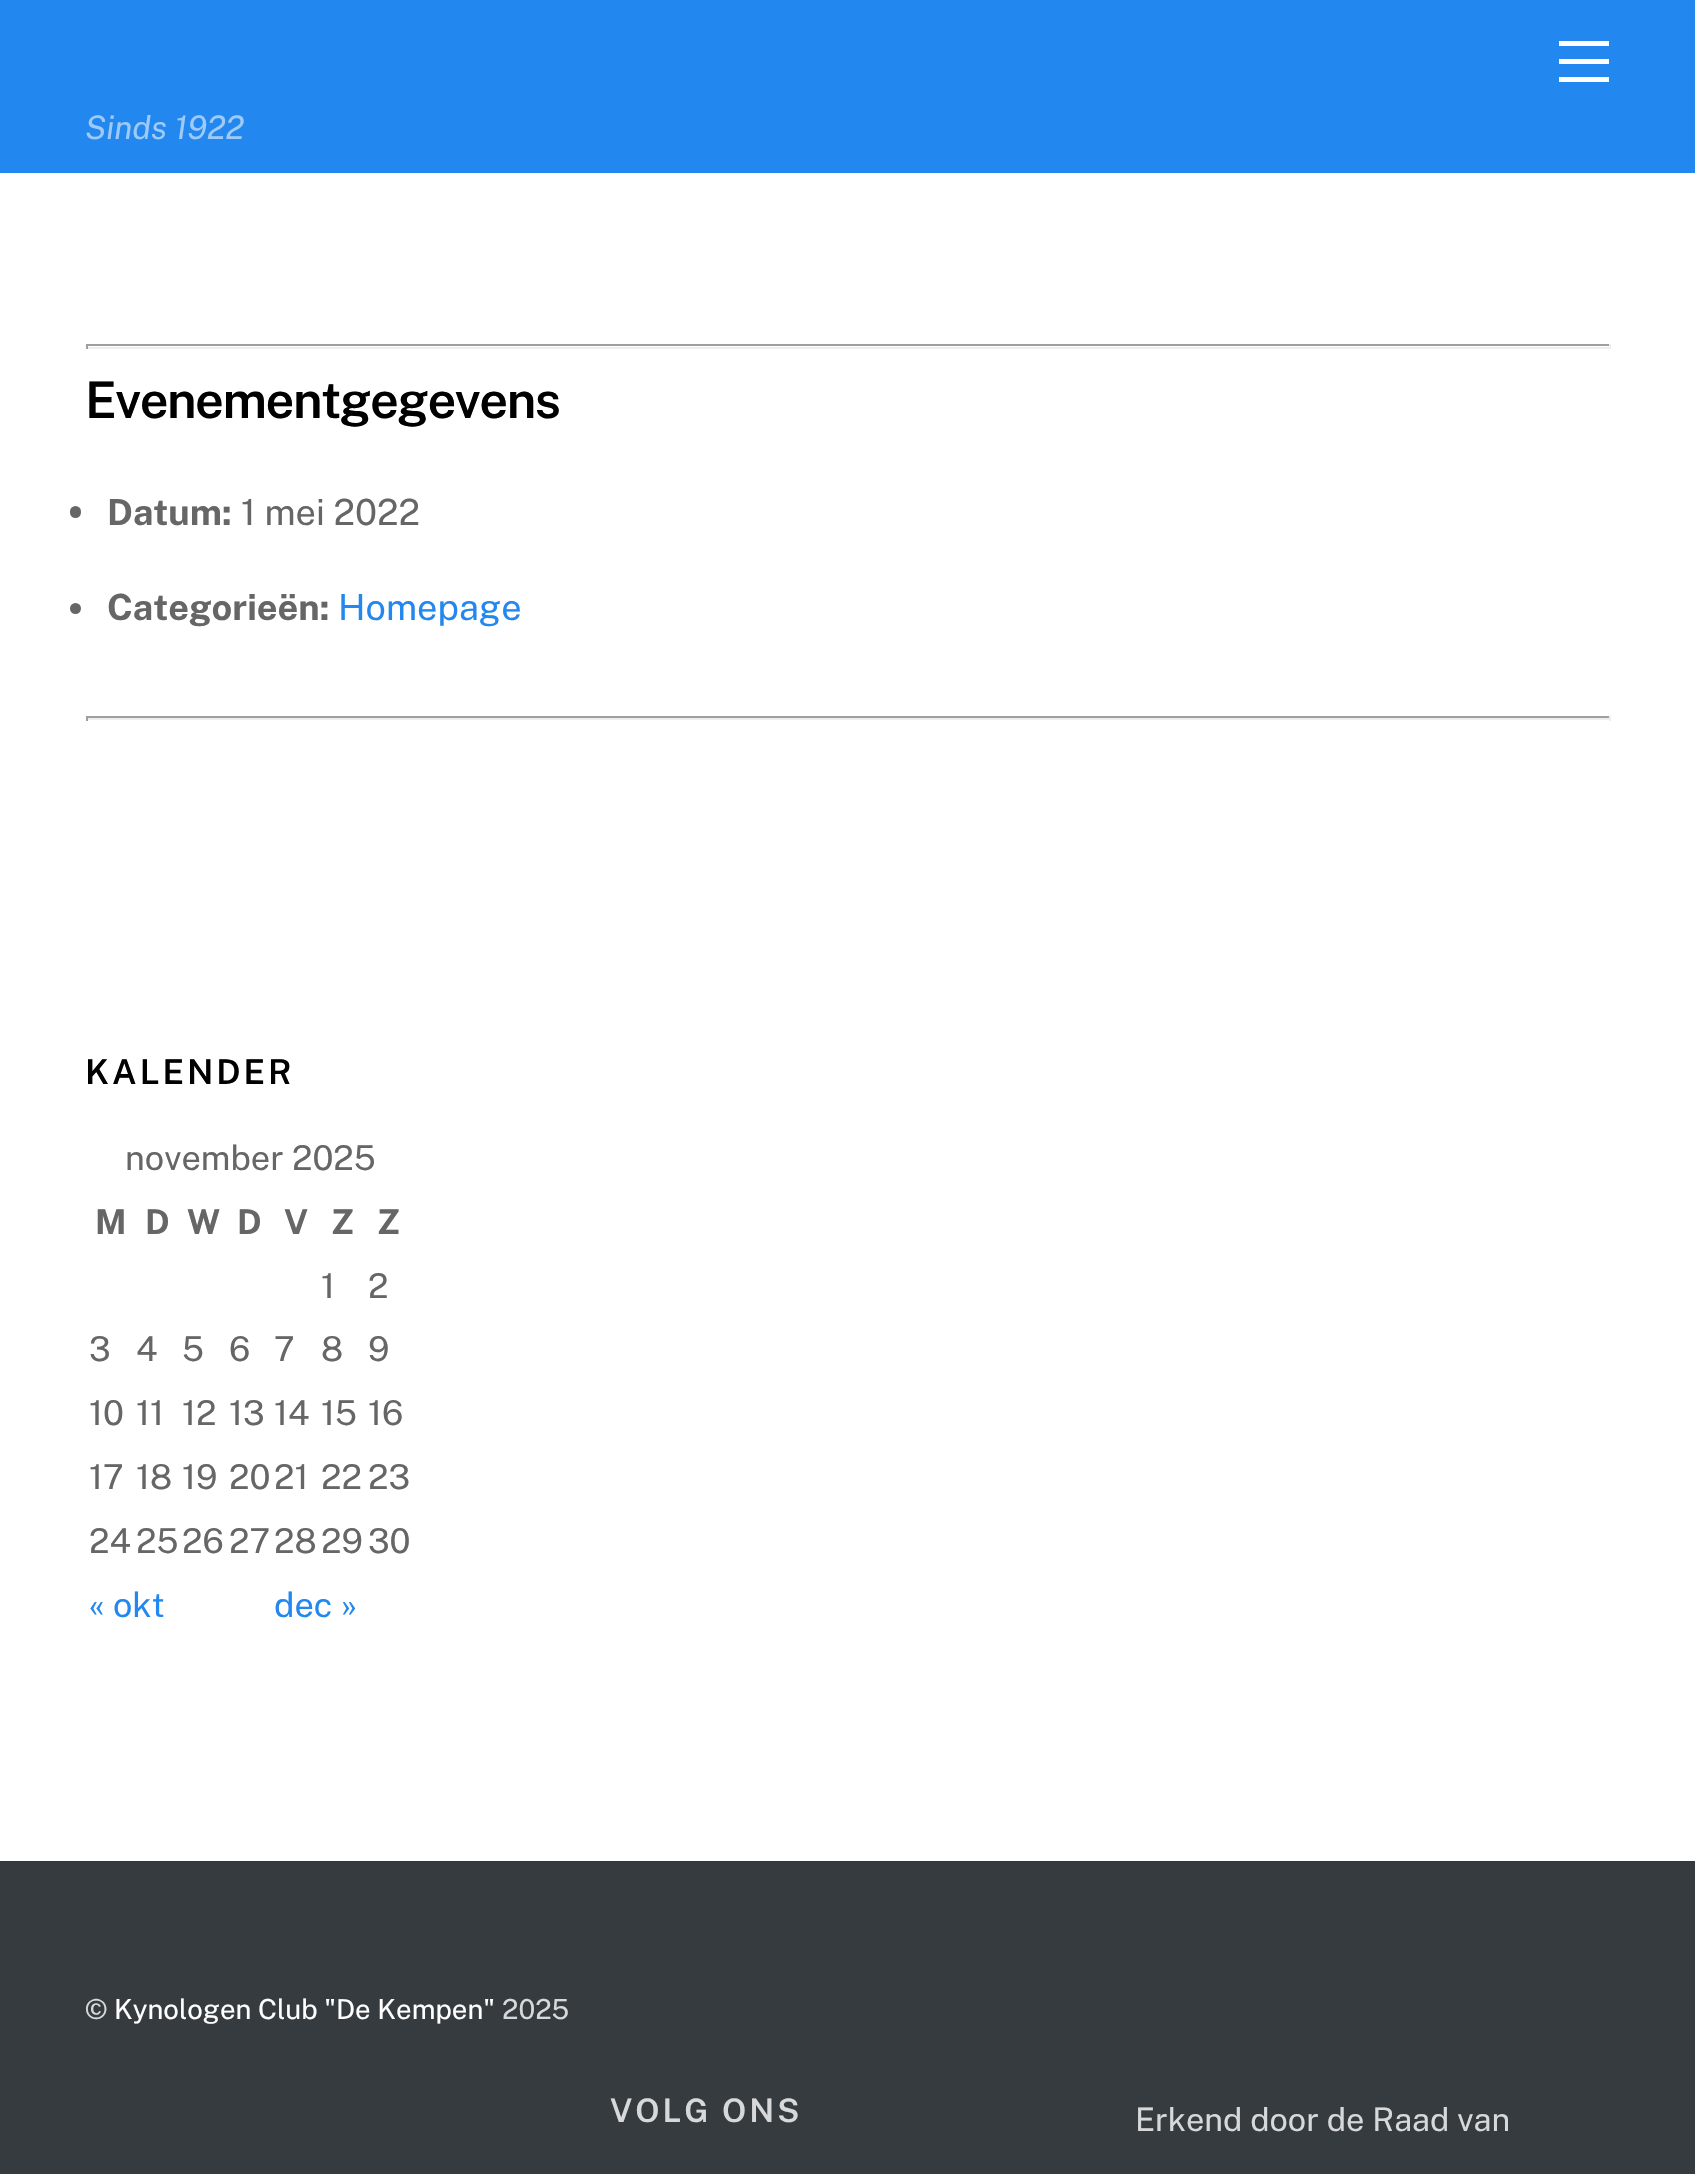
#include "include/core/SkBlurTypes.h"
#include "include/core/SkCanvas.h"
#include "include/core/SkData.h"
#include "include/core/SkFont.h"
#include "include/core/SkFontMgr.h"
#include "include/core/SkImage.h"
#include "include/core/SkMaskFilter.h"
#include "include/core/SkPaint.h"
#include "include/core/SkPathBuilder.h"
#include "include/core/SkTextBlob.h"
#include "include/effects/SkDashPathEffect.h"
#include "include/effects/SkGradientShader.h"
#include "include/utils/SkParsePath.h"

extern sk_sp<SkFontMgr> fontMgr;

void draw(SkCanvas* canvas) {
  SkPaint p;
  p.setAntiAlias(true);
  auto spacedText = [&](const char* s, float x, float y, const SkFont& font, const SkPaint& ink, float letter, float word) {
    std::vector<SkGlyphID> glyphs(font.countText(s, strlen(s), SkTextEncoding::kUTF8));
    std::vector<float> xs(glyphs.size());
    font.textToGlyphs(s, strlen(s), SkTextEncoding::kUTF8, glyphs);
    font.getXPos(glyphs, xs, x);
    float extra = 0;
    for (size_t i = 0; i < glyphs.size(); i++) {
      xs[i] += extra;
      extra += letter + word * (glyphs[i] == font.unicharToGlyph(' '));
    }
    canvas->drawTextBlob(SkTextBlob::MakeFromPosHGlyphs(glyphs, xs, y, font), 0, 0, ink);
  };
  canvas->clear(SK_ColorWHITE);
  p.setColor(SkColorSetRGB(34, 135, 239));
  canvas->drawRect(SkRect::MakeLTRB(0, 0, 1695, 173), p);
  p.setColor(SK_ColorWHITE);
  canvas->drawRect(SkRect::MakeLTRB(1559, 77, 1609, 82), p);
  canvas->drawRect(SkRect::MakeLTRB(1559, 41, 1609, 46), p);
  canvas->drawRect(SkRect::MakeLTRB(1559, 59, 1609, 64), p);
  p.setColor(SkColorSetRGB(159, 159, 159));
  canvas->drawRect(SkRect::MakeLTRB(86, 344, 1611, 346), p);
  p.setColor(SkColorSetRGB(238, 238, 238));
  canvas->drawRect(SkRect::MakeLTRB(1609, 344, 1611, 349), p);
  canvas->drawRect(SkRect::MakeLTRB(86, 347, 1611, 349), p);
  p.setColor(SkColorSetRGB(159, 159, 159));
  canvas->drawRect(SkRect::MakeLTRB(86, 344, 88, 349), p);
  p.setColor(SkColorSetRGB(102, 102, 102));
  canvas->drawRoundRect(SkRect::MakeLTRB(70, 506, 81, 518), 5.5f, 5.5f, p);
  canvas->drawCircle(75.5f, 608.5f, 5.5f, p);
  p.setColor(SkColorSetRGB(159, 159, 159));
  canvas->drawRect(SkRect::MakeLTRB(86, 716, 1611, 718), p);
  p.setColor(SkColorSetRGB(238, 238, 238));
  canvas->drawRect(SkRect::MakeLTRB(1609, 716, 1611, 721), p);
  canvas->drawRect(SkRect::MakeLTRB(86, 718, 1611, 720), p);
  p.setColor(SkColorSetRGB(159, 159, 159));
  canvas->drawRect(SkRect::MakeLTRB(86, 716, 88, 721), p);
  p.setColor(SkColorSetRGB(54, 59, 63));
  canvas->drawRect(SkRect::MakeLTRB(0, 1863, 1695, 2174), p);
  p.setColor(SkColorSetRGB(51, 56, 60));
  canvas->drawRect(SkRect::MakeLTRB(0, 1861, 1695, 1863), p);
  SkFont font1(fontMgr->matchFamilyStyle("Public Sans", SkFontStyle::Italic()), 32.4f);
  font1.setSubpixel(true);
  p.setColor(SkColorSetRGB(158, 202, 248));
  canvas->drawString("Sinds 1922", 85, 139, font1, p);
  SkFont font2(fontMgr->matchFamilyStyle("Public Sans", SkFontStyle(600, SkFontStyle::kNormal_Width, SkFontStyle::kUpright_Slant)), 50.5f);
  font2.setSubpixel(true);
  p.setColor(SK_ColorBLACK);
  spacedText("Evenementgegevens", 85, 418, font2, p, -1.5f, 0);
  SkFont font3(fontMgr->matchFamilyStyle("Public Sans", SkFontStyle::Bold()), 36);
  font3.setSubpixel(true);
  p.setColor(SkColorSetRGB(102, 102, 102));
  canvas->drawString("Datum:", 107, 525, font3, p);
  SkFont font4(fontMgr->matchFamilyStyle("Public Sans", SkFontStyle::Normal()), 36);
  font4.setSubpixel(true);
  canvas->drawString("1 mei 2022", 241, 525, font4, p);
  canvas->drawString("Categorieën:", 107, 620, font3, p);
  p.setColor(SkColorSetRGB(34, 135, 239));
  canvas->drawString("Homepage", 338, 620, font4, p);
  SkFont font5(fontMgr->matchFamilyStyle("Public Sans", SkFontStyle(600, SkFontStyle::kNormal_Width, SkFontStyle::kUpright_Slant)), 34.25f);
  font5.setSubpixel(true);
  p.setColor(SK_ColorBLACK);
  spacedText("KALENDER", 85, 1084, font5, p, 3, 0);
  SkFont font6(fontMgr->matchFamilyStyle("Public Sans", SkFontStyle::Normal()), 34.25f);
  font6.setSubpixel(true);
  p.setColor(SkColorSetRGB(102, 102, 102));
  canvas->drawString("november 2025", 125, 1170, font6, p);
  SkFont font7(fontMgr->matchFamilyStyle("Public Sans", SkFontStyle::Bold()), 34.25f);
  font7.setSubpixel(true);
  canvas->drawString("M", 95, 1234, font7, p);
  canvas->drawString("D", 145, 1234, font7, p);
  canvas->drawString("W", 187, 1234, font7, p);
  canvas->drawString("D", 237, 1234, font7, p);
  canvas->drawString("V", 284, 1234, font7, p);
  canvas->drawString("Z", 331, 1234, font7, p);
  canvas->drawString("Z", 377, 1234, font7, p);
  canvas->drawString("1", 321, 1298, font6, p);
  canvas->drawString("2", 368, 1298, font6, p);
  canvas->drawString("3", 89, 1361, font6, p);
  canvas->drawString("4", 136, 1361, font6, p);
  canvas->drawString("5", 182, 1361, font6, p);
  canvas->drawString("6", 229, 1361, font6, p);
  canvas->drawString("7", 274, 1361, font6, p);
  canvas->drawString("8", 321, 1361, font6, p);
  canvas->drawString("9", 368, 1361, font6, p);
  canvas->drawString("10", 89, 1425, font6, p);
  canvas->drawString("11", 136, 1425, font6, p);
  canvas->drawString("12", 182, 1425, font6, p);
  canvas->drawString("13", 229, 1425, font6, p);
  canvas->drawString("14", 274, 1425, font6, p);
  canvas->drawString("15", 321, 1425, font6, p);
  canvas->drawString("16", 368, 1425, font6, p);
  canvas->drawString("17", 89, 1489, font6, p);
  canvas->drawString("18", 136, 1489, font6, p);
  canvas->drawString("19", 182, 1489, font6, p);
  canvas->drawString("20", 229, 1489, font6, p);
  canvas->drawString("21", 274, 1489, font6, p);
  canvas->drawString("22", 321, 1489, font6, p);
  canvas->drawString("23", 368, 1489, font6, p);
  canvas->drawString("24", 89, 1553, font6, p);
  canvas->drawString("25", 136, 1553, font6, p);
  canvas->drawString("26", 182, 1553, font6, p);
  canvas->drawString("27", 229, 1553, font6, p);
  canvas->drawString("28", 274, 1553, font6, p);
  canvas->drawString("29", 321, 1553, font6, p);
  canvas->drawString("30", 368, 1553, font6, p);
  p.setColor(SkColorSetRGB(34, 135, 239));
  canvas->drawString("« okt", 89, 1617, font6, p);
  canvas->drawString("dec »", 274, 1617, font6, p);
  SkFont font8(fontMgr->matchFamilyStyle("Public Sans", SkFontStyle::Normal()), 27.5f);
  font8.setSubpixel(true);
  p.setColor(SkColorSetRGB(215, 216, 217));
  canvas->drawString("©", 85, 2019, font8, p);
  p.setColor(SK_ColorWHITE);
  canvas->drawString("Kynologen Club \"De Kempen\"", 114, 2019, font8, p);
  p.setColor(SkColorSetRGB(215, 216, 217));
  canvas->drawString("2025", 502, 2019, font8, p);
  SkFont font9(fontMgr->matchFamilyStyle("Public Sans", SkFontStyle(600, SkFontStyle::kNormal_Width, SkFontStyle::kUpright_Slant)), 32.4f);
  font9.setSubpixel(true);
  spacedText("VOLG ONS", 610, 2122, font9, p, 3, 0);
  SkFont font10(fontMgr->matchFamilyStyle("Public Sans", SkFontStyle::Normal()), 32.4f);
  font10.setSubpixel(true);
  canvas->drawString("Erkend door de Raad van", 1135, 2131, font10, p);
}
